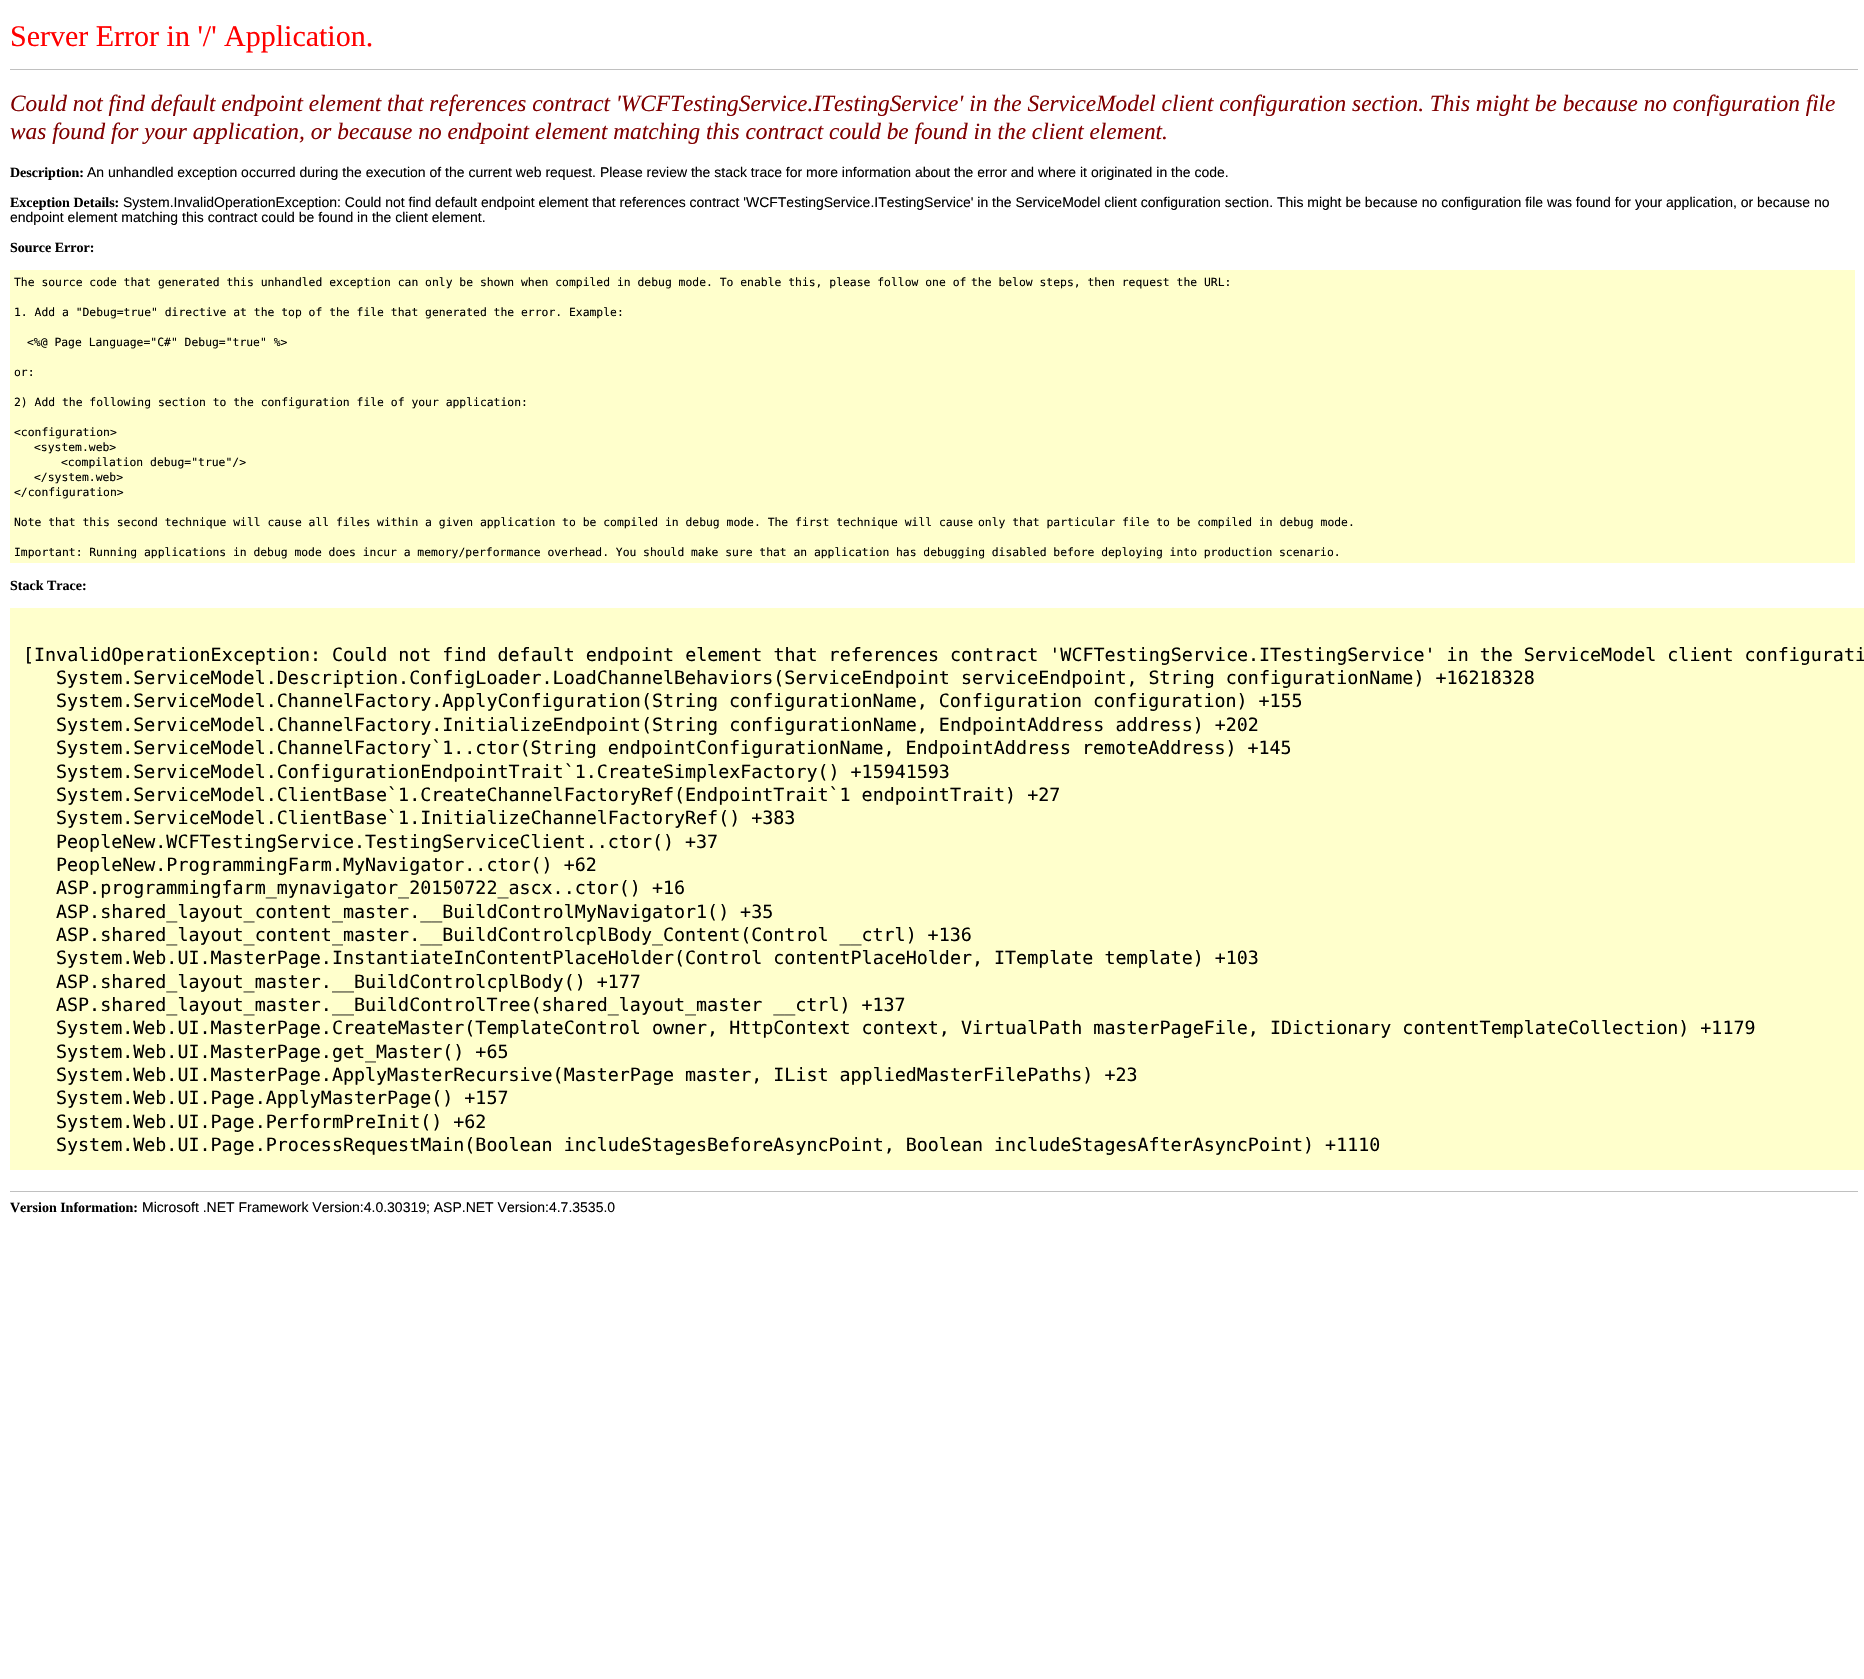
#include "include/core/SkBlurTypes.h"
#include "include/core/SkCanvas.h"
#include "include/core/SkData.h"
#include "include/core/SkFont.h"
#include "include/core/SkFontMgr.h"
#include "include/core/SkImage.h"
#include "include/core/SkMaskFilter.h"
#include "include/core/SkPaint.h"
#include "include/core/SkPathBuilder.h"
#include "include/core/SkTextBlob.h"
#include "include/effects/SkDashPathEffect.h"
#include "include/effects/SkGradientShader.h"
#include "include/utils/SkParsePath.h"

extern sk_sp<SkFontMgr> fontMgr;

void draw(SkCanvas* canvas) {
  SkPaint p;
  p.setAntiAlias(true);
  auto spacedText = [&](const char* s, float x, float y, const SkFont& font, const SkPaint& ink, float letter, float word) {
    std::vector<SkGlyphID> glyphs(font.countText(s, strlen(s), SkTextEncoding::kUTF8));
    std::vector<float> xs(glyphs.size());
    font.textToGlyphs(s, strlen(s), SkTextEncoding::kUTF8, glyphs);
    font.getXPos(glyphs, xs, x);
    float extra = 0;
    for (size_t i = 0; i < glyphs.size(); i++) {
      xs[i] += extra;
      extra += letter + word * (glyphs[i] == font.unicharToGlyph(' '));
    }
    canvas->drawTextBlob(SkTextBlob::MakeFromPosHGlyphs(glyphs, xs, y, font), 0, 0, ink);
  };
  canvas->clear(SK_ColorWHITE);
  p.setColor(SkColorSetRGB(192, 192, 192));
  canvas->drawRect(SkRect::MakeLTRB(10, 69, 1858, 70), p);
  p.setColor(SkColorSetRGB(255, 255, 204));
  canvas->drawRect(SkRect::MakeLTRB(10, 270, 1855, 563), p);
  canvas->drawRect(SkRect::MakeLTRB(10, 608, 1864, 1170), p);
  p.setColor(SkColorSetRGB(192, 192, 192));
  canvas->drawRect(SkRect::MakeLTRB(10, 1191, 1858, 1192), p);
  SkFont font1(fontMgr->matchFamilyStyle("Liberation Serif", SkFontStyle::Normal()), 30);
  font1.setSubpixel(true);
  p.setColor(SkColorSetRGB(255, 0, 0));
  canvas->drawString("Server Error in '/' Application.", 10, 46, font1, p);
  SkFont font2(fontMgr->matchFamilyStyle("Liberation Serif", SkFontStyle::Italic()), 23.33f);
  font2.setSubpixel(true);
  p.setColor(SkColorSetRGB(128, 0, 0));
  canvas->drawString("Could not find default endpoint element that references contract 'WCFTestingService.ITestingService' in the ServiceModel client configuration section. This might be because no configuration file", 10, 111, font2, p);
  canvas->drawString("was found for your application, or because no endpoint element matching this contract could be found in the client element.", 10, 139, font2, p);
  SkFont font3(fontMgr->matchFamilyStyle("Liberation Serif", SkFontStyle::Bold()), 14);
  font3.setSubpixel(true);
  p.setColor(SK_ColorBLACK);
  canvas->drawString("Description:", 10, 177, font3, p);
  SkFont font4(fontMgr->matchFamilyStyle("Liberation Sans", SkFontStyle::Normal()), 14);
  font4.setSubpixel(true);
  canvas->drawString("An unhandled exception occurred during the execution of the current web request. Please review the stack trace for more information about the error and where it originated in the code.", 87, 177, font4, p);
  canvas->drawString("Exception Details:", 10, 207, font3, p);
  canvas->drawString("System.InvalidOperationException: Could not find default endpoint element that references contract 'WCFTestingService.ITestingService' in the ServiceModel client configuration section. This might be because no configuration file was found for your application, or because no", 123, 207, font4, p);
  canvas->drawString("endpoint element matching this contract could be found in the client element.", 10, 222, font4, p);
  canvas->drawString("Source Error:", 10, 252, font3, p);
  SkFont font5(fontMgr->matchFamilyStyle("DejaVu Sans Mono", SkFontStyle::Normal()), 11.38f);
  font5.setSubpixel(true);
  canvas->drawString("The source code that generated this unhandled exception can only be shown when compiled in debug mode. To enable this, please follow one of", 14, 286, font5, p);
  canvas->drawString("the below steps, then request the URL:", 971, 286, font5, p);
  canvas->drawString("1. Add a \"Debug=true\" directive at the top of the file that generated the error. Example:", 14, 316, font5, p);
  canvas->drawString("<%@ Page Language=\"C#\" Debug=\"true\" %>", 27, 346, font5, p);
  canvas->drawString("or:", 14, 376, font5, p);
  canvas->drawString("2) Add the following section to the configuration file of your application:", 14, 406, font5, p);
  canvas->drawString("<configuration>", 14, 436, font5, p);
  canvas->drawString("<system.web>", 34, 451, font5, p);
  canvas->drawString("<compilation debug=\"true\"/>", 61, 466, font5, p);
  canvas->drawString("</system.web>", 34, 481, font5, p);
  canvas->drawString("</configuration>", 14, 496, font5, p);
  canvas->drawString("Note that this second technique will cause all files within a given application to be compiled in debug mode. The first technique will cause", 14, 526, font5, p);
  canvas->drawString("only that particular file to be compiled in debug mode.", 978, 526, font5, p);
  spacedText("Important: Running applications in debug mode does incur a memory/performance overhead. You should make sure that an application has debugging disabled before deploying into production scenario.", 14, 556, font5, p, 0, -0.1f);
  canvas->drawString("Stack Trace:", 10, 590, font3, p);
  SkFont font6(fontMgr->matchFamilyStyle("DejaVu Sans Mono", SkFontStyle::Normal()), 18.33f);
  font6.setSubpixel(true);
  canvas->drawString("[InvalidOperationException: Could not find default endpoint element that references contract 'WCFTestingService.ITestingService' in the ServiceModel client configurati", 23, 661, font6, p);
  canvas->drawString("System.ServiceModel.Description.ConfigLoader.LoadChannelBehaviors(ServiceEndpoint serviceEndpoint, String configurationName) +16218328", 56, 684, font6, p);
  spacedText("System.ServiceModel.ChannelFactory.ApplyConfiguration(String configurationName, Configuration configuration) +155", 56, 707, font6, p, 0, -0.1f);
  canvas->drawString("System.ServiceModel.ChannelFactory.InitializeEndpoint(String configurationName, EndpointAddress address) +202", 56, 731, font6, p);
  spacedText("System.ServiceModel.ChannelFactory`1..ctor(String endpointConfigurationName, EndpointAddress remoteAddress) +145", 56, 754, font6, p, 0, -0.1f);
  canvas->drawString("System.ServiceModel.ConfigurationEndpointTrait`1.CreateSimplexFactory() +15941593", 56, 778, font6, p);
  canvas->drawString("System.ServiceModel.ClientBase`1.CreateChannelFactoryRef(EndpointTrait`1 endpointTrait) +27", 56, 801, font6, p);
  canvas->drawString("System.ServiceModel.ClientBase`1.InitializeChannelFactoryRef() +383", 56, 824, font6, p);
  canvas->drawString("PeopleNew.WCFTestingService.TestingServiceClient..ctor() +37", 56, 848, font6, p);
  canvas->drawString("PeopleNew.ProgrammingFarm.MyNavigator..ctor() +62", 56, 871, font6, p);
  canvas->drawString("ASP.programmingfarm_mynavigator_20150722_ascx..ctor() +16", 56, 894, font6, p);
  spacedText("ASP.shared_layout_content_master.__BuildControlMyNavigator1() +35", 56, 918, font6, p, 0, -0.1f);
  spacedText("ASP.shared_layout_content_master.__BuildControlcplBody_Content(Control __ctrl) +136", 56, 941, font6, p, 0, -0.1f);
  canvas->drawString("System.Web.UI.MasterPage.InstantiateInContentPlaceHolder(Control contentPlaceHolder, ITemplate template) +103", 56, 964, font6, p);
  canvas->drawString("ASP.shared_layout_master.__BuildControlcplBody() +177", 56, 988, font6, p);
  spacedText("ASP.shared_layout_master.__BuildControlTree(shared_layout_master __ctrl) +137", 56, 1011, font6, p, 0, -0.1f);
  canvas->drawString("System.Web.UI.MasterPage.CreateMaster(TemplateControl owner, HttpContext context, VirtualPath masterPageFile, IDictionary contentTemplateCollection) +1179", 56, 1034, font6, p);
  canvas->drawString("System.Web.UI.MasterPage.get_Master() +65", 56, 1058, font6, p);
  canvas->drawString("System.Web.UI.MasterPage.ApplyMasterRecursive(MasterPage master, IList appliedMasterFilePaths) +23", 56, 1081, font6, p);
  canvas->drawString("System.Web.UI.Page.ApplyMasterPage() +157", 56, 1104, font6, p);
  canvas->drawString("System.Web.UI.Page.PerformPreInit() +62", 56, 1128, font6, p);
  canvas->drawString("System.Web.UI.Page.ProcessRequestMain(Boolean includeStagesBeforeAsyncPoint, Boolean includeStagesAfterAsyncPoint) +1110", 56, 1151, font6, p);
  canvas->drawString("Version Information:", 10, 1212, font3, p);
  canvas->drawString("Microsoft .NET Framework Version:4.0.30319; ASP.NET Version:4.7.3535.0", 142, 1212, font4, p);
}
